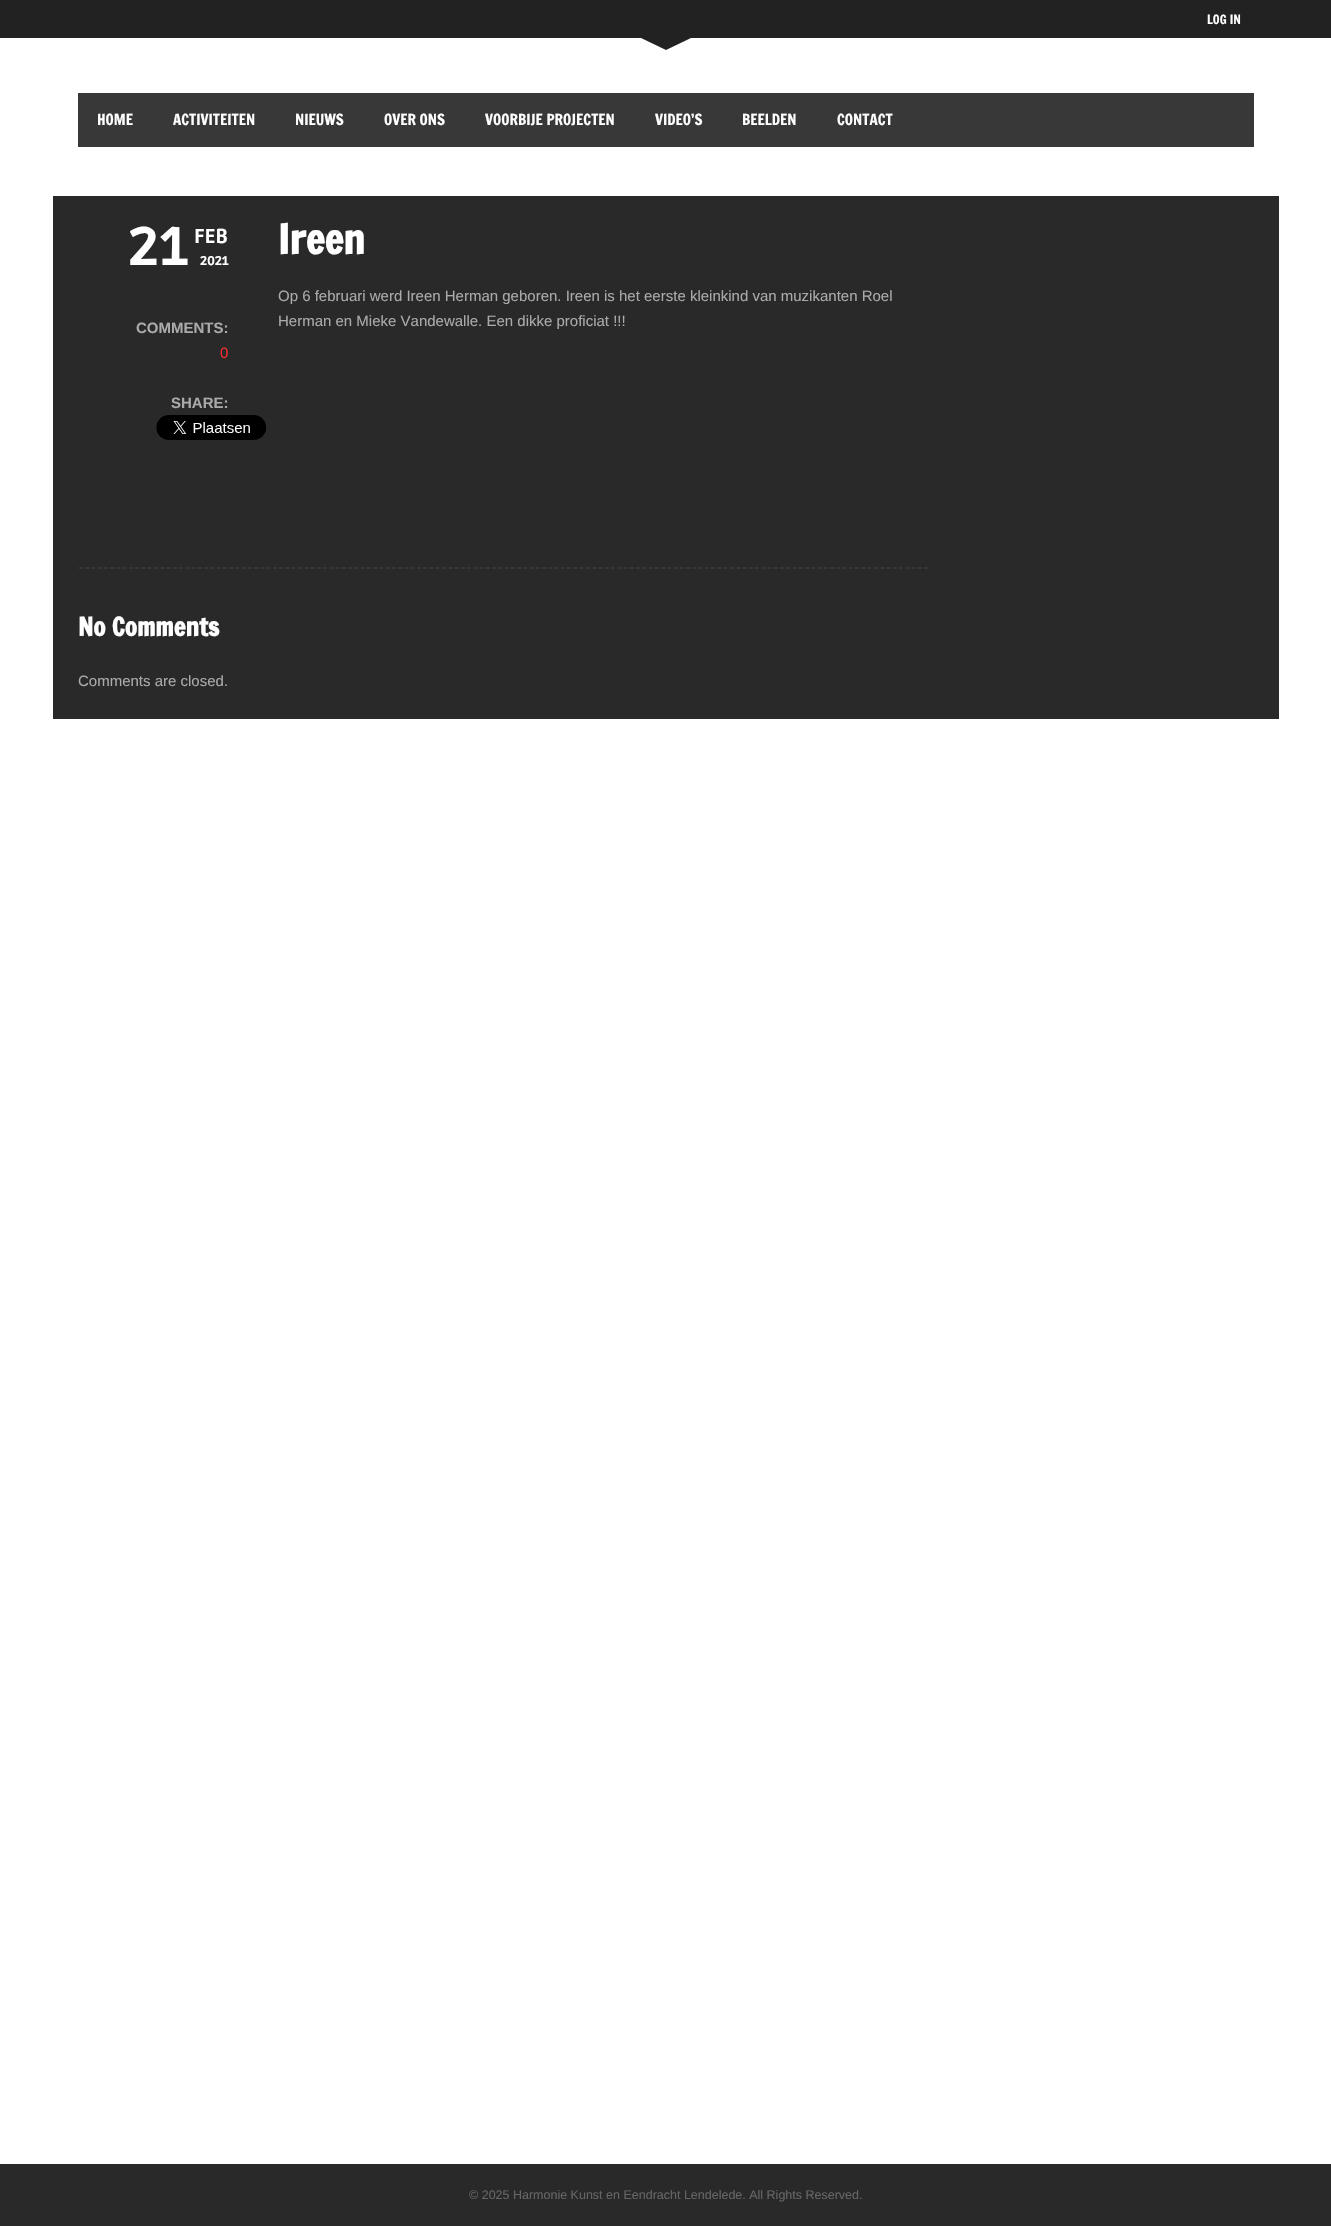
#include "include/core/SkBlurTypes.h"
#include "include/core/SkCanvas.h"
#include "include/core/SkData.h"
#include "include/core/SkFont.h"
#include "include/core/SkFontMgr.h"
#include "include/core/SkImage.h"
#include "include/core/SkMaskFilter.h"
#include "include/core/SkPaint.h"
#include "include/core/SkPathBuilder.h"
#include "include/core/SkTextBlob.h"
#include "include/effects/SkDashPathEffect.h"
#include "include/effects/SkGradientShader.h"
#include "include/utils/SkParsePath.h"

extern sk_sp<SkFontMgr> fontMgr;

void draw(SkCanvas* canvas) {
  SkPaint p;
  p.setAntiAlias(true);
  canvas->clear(SK_ColorWHITE);
  p.setColor(SkColorSetRGB(34, 34, 34));
  canvas->drawRect(SkRect::MakeLTRB(0, 0, 1331, 38), p);
  canvas->drawPath(SkPathBuilder().moveTo(641, 38).lineTo(691, 38).lineTo(666, 50).close().detach(), p);
  p.setColor(SkColorSetRGB(56, 56, 56));
  canvas->drawRect(SkRect::MakeLTRB(78, 93, 1254, 147), p);
  p.setColor(SkColorSetRGB(41, 41, 41));
  canvas->drawRect(SkRect::MakeLTRB(53, 196, 1279, 719), p);
  canvas->drawImageRect(SkImages::DeferredFromEncodedData(SkData::MakeFromFileName("images/1.png")), SkRect::MakeLTRB(156, 415, 266, 440), SkSamplingOptions());
  p.setStyle(SkPaint::kStroke_Style);
  p.setStrokeWidth(1.2f);
  p.setColor(SkColorSetRGB(68, 68, 68));
  p.setPathEffect(SkDashPathEffect::Make({{3.75f, 2.51f}}, 0));
  canvas->drawPath(SkPathBuilder().moveTo(79, 568).lineTo(929, 568).detach(), p);
  p.setPathEffect(nullptr);
  p.setStyle(SkPaint::kFill_Style);
  p.setColor(SkColorSetRGB(41, 41, 41));
  canvas->drawRect(SkRect::MakeLTRB(0, 2164, 1331, 2226), p);
  SkFont font1(fontMgr->matchFamilyStyle("Francois One", SkFontStyle::Normal()), 12.5f);
  font1.setSubpixel(true);
  p.setColor(SK_ColorWHITE);
  canvas->drawString("LOG IN", 1207, 24, font1, p);
  SkFont font2(fontMgr->matchFamilyStyle("Francois One", SkFontStyle::Normal()), 15);
  font2.setSubpixel(true);
  canvas->drawString("HOME", 97, 125, font2, p);
  canvas->drawString("ACTIVITEITEN", 173, 125, font2, p);
  canvas->drawString("NIEUWS", 295, 125, font2, p);
  canvas->drawString("OVER ONS", 384, 125, font2, p);
  canvas->drawString("VOORBIJE PROJECTEN", 485, 125, font2, p);
  canvas->drawString("VIDEO’S", 655, 125, font2, p);
  canvas->drawString("BEELDEN", 742, 125, font2, p);
  canvas->drawString("CONTACT", 837, 125, font2, p);
  SkFont font3(fontMgr->matchFamilyStyle("Ruda", SkFontStyle(800, SkFontStyle::kNormal_Width, SkFontStyle::kUpright_Slant)), 54);
  font3.setSubpixel(true);
  canvas->drawString("21", 128, 265, font3, p);
  SkFont font4(fontMgr->matchFamilyStyle("Ruda", SkFontStyle(800, SkFontStyle::kNormal_Width, SkFontStyle::kUpright_Slant)), 20);
  font4.setSubpixel(true);
  canvas->drawString("FEB", 194, 243, font4, p);
  SkFont font5(fontMgr->matchFamilyStyle("Ruda", SkFontStyle(800, SkFontStyle::kNormal_Width, SkFontStyle::kUpright_Slant)), 12.5f);
  font5.setSubpixel(true);
  canvas->drawString("2021", 200, 265, font5, p);
  SkFont font6(fontMgr->matchFamilyStyle("Liberation Sans", SkFontStyle::Bold()), 15);
  font6.setSubpixel(true);
  p.setColor(SkColorSetRGB(170, 170, 170));
  canvas->drawString("COMMENTS:", 136, 333, font6, p);
  SkFont font7(fontMgr->matchFamilyStyle("Liberation Sans", SkFontStyle::Normal()), 15);
  font7.setSubpixel(true);
  p.setColor(SkColorSetRGB(251, 46, 46));
  canvas->drawString("0", 220, 358, font7, p);
  p.setColor(SkColorSetRGB(170, 170, 170));
  canvas->drawString("SHARE:", 171, 408, font6, p);
  SkFont font8(fontMgr->matchFamilyStyle("Francois One", SkFontStyle::Bold()), 40);
  font8.setSubpixel(true);
  p.setColor(SK_ColorWHITE);
  canvas->drawString("Ireen", 278, 254, font8, p);
  p.setColor(SkColorSetRGB(170, 170, 170));
  canvas->drawString("Op 6 februari werd Ireen Herman geboren. Ireen is het eerste kleinkind van muzikanten Roel", 278, 301, font7, p);
  canvas->drawString("Herman en Mieke Vandewalle. Een dikke proficiat !!!", 278, 326, font7, p);
  SkFont font9(fontMgr->matchFamilyStyle("Francois One", SkFontStyle::Bold()), 25);
  font9.setSubpixel(true);
  p.setColor(SK_ColorWHITE);
  canvas->drawString("No Comments", 78, 636, font9, p);
  p.setColor(SkColorSetRGB(170, 170, 170));
  canvas->drawString("Comments are closed.", 78, 686, font7, p);
  SkFont font10(fontMgr->matchFamilyStyle("Liberation Sans", SkFontStyle::Normal()), 12.5f);
  font10.setSubpixel(true);
  p.setColor(SkColorSetRGB(102, 102, 102));
  canvas->drawString("© 2025 Harmonie Kunst en Eendracht Lendelede. All Rights Reserved.", 469, 2199, font10, p);
}
